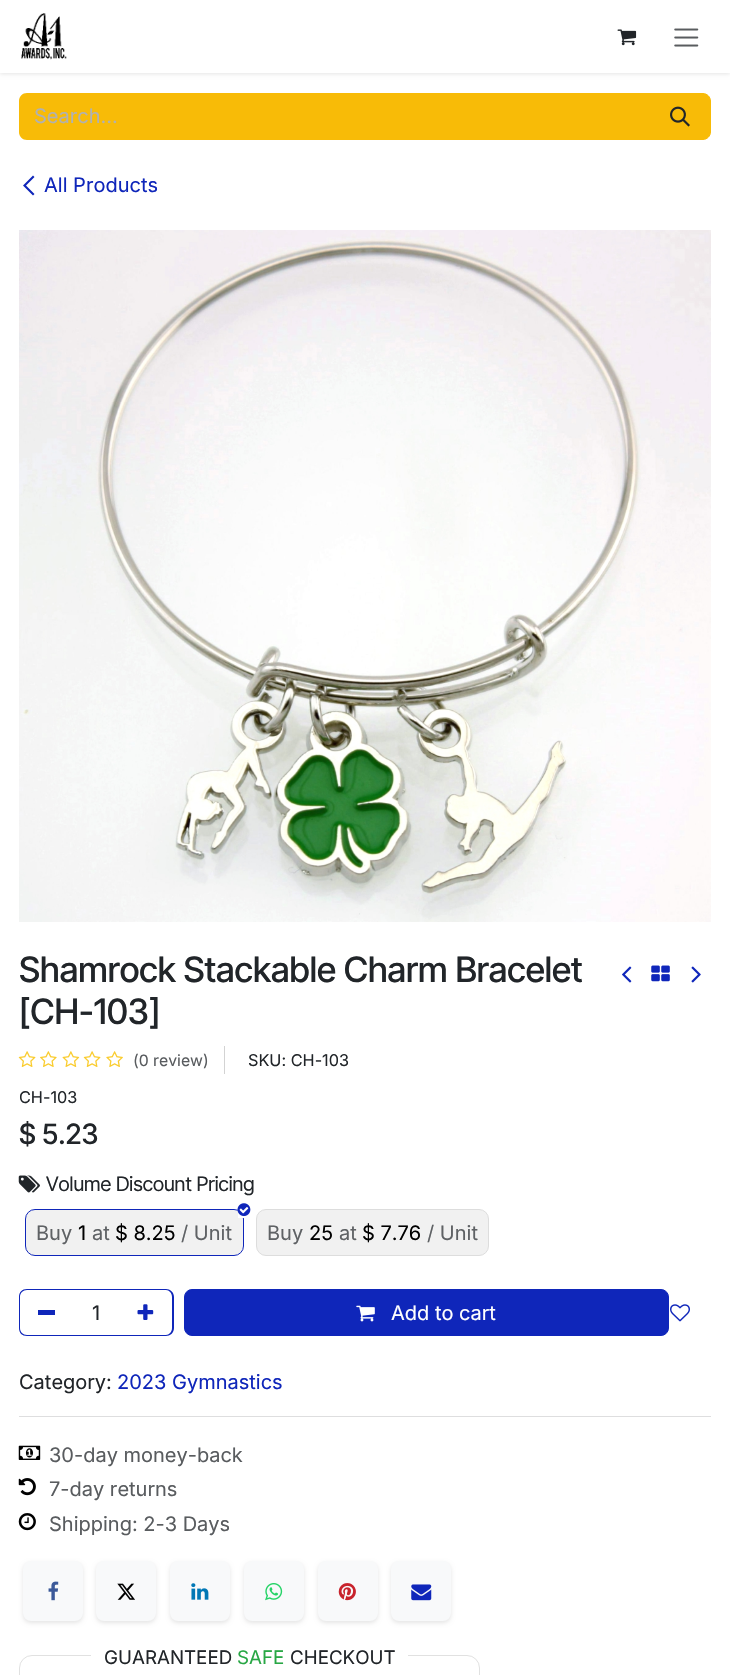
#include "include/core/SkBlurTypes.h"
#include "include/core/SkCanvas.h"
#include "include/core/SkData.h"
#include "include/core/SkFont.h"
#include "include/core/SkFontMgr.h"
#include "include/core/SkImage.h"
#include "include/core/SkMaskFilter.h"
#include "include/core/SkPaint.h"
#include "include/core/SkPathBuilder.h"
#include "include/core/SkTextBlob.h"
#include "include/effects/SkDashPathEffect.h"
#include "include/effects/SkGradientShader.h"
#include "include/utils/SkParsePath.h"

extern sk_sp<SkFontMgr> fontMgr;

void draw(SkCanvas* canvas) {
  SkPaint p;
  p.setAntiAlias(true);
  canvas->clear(SK_ColorWHITE);
  p.setColor(SkColorSetARGB(26, 0, 0, 0));
  p.setMaskFilter(SkMaskFilter::MakeBlur(kNormal_SkBlurStyle, 2));
  canvas->drawRect(SkRect::MakeLTRB(0, 1, 730, 74), p);
  p.setMaskFilter(nullptr);
  p.setColor(SK_ColorWHITE);
  canvas->drawRect(SkRect::MakeLTRB(0, 0, 730, 73), p);
  canvas->drawImageRect(SkImages::DeferredFromEncodedData(SkData::MakeFromFileName("images/1.png")), SkRect::MakeLTRB(21, 13, 67, 60), SkSamplingOptions());
  canvas->drawImageRect(SkImages::DeferredFromEncodedData(SkData::MakeFromFileName("images/2.png")), SkRect::MakeLTRB(617, 29, 637, 46), SkSamplingOptions());
  canvas->drawImageRect(SkImages::DeferredFromEncodedData(SkData::MakeFromFileName("images/3.png")), SkRect::MakeLTRB(674, 28, 699, 47), SkSamplingOptions());
  p.setColor(SkColorSetRGB(248, 187, 7));
  canvas->drawPath(SkPathBuilder().moveTo(27, 93).lineTo(650, 93).lineTo(650, 140).lineTo(27, 140).cubicTo(22.5f, 140, 19, 136.5f, 19, 132).lineTo(19, 101).cubicTo(19, 96.5f, 22.5f, 93, 27, 93).close().detach(), p);
  canvas->drawPath(SkPathBuilder().moveTo(649.5f, 93.5f).lineTo(703, 93.5f).cubicTo(707, 93.5f, 710.5f, 97, 710.5f, 101).lineTo(710.5f, 132).cubicTo(710.5f, 136, 707, 139.5f, 703, 139.5f).lineTo(649.5f, 139.5f).close().detach(), p);
  p.setStyle(SkPaint::kStroke_Style);
  p.setStrokeWidth(1);
  canvas->drawPath(SkPathBuilder().moveTo(649.5f, 93.5f).lineTo(703, 93.5f).cubicTo(707, 93.5f, 710.5f, 97, 710.5f, 101).lineTo(710.5f, 132).cubicTo(710.5f, 136, 707, 139.5f, 703, 139.5f).lineTo(649.5f, 139.5f).close().detach(), p);
  canvas->drawImageRect(SkImages::DeferredFromEncodedData(SkData::MakeFromFileName("images/4.png")), SkRect::MakeLTRB(670, 106, 690, 127), SkSamplingOptions());
  p.setStyle(SkPaint::kFill_Style);
  p.setColor(SkColorSetRGB(15, 38, 186));
  canvas->drawPath(SkPathBuilder().moveTo(23, 185.5f).lineTo(33, 175.5f).lineTo(34.5f, 177).lineTo(26, 185.5f).lineTo(34.5f, 194).lineTo(33, 195.5f).close().detach(), p);
  canvas->drawImageRect(SkImages::DeferredFromEncodedData(SkData::MakeFromFileName("images/5.png")), SkRect::MakeLTRB(19, 230, 711, 922), SkSamplingOptions());
  canvas->drawImageRect(SkImages::DeferredFromEncodedData(SkData::MakeFromFileName("images/6.png")), SkRect::MakeLTRB(622, 966, 632, 983), SkSamplingOptions());
  canvas->drawImageRect(SkImages::DeferredFromEncodedData(SkData::MakeFromFileName("images/7.png")), SkRect::MakeLTRB(651, 965, 670, 982), SkSamplingOptions());
  canvas->drawImageRect(SkImages::DeferredFromEncodedData(SkData::MakeFromFileName("images/8.png")), SkRect::MakeLTRB(691, 966, 701, 983), SkSamplingOptions());
  p.setColor(SkColorSetRGB(211, 211, 211));
  canvas->drawRect(SkRect::MakeLTRB(224, 1046, 225, 1074), p);
  canvas->drawImageRect(SkImages::DeferredFromEncodedData(SkData::MakeFromFileName("images/9.png")), SkRect::MakeLTRB(18, 1051, 36, 1067), SkSamplingOptions());
  canvas->drawImageRect(SkImages::DeferredFromEncodedData(SkData::MakeFromFileName("images/10.png")), SkRect::MakeLTRB(40, 1051, 57, 1067), SkSamplingOptions());
  canvas->drawImageRect(SkImages::DeferredFromEncodedData(SkData::MakeFromFileName("images/11.png")), SkRect::MakeLTRB(62, 1051, 80, 1067), SkSamplingOptions());
  canvas->drawImageRect(SkImages::DeferredFromEncodedData(SkData::MakeFromFileName("images/9.png")), SkRect::MakeLTRB(83, 1051, 101, 1067), SkSamplingOptions());
  canvas->drawImageRect(SkImages::DeferredFromEncodedData(SkData::MakeFromFileName("images/12.png")), SkRect::MakeLTRB(106, 1051, 123, 1067), SkSamplingOptions());
  canvas->drawImageRect(SkImages::DeferredFromEncodedData(SkData::MakeFromFileName("images/13.png")), SkRect::MakeLTRB(18, 1175, 40, 1193), SkSamplingOptions());
  p.setColor(SkColorSetRGB(241, 241, 241));
  canvas->drawRoundRect(SkRect::MakeLTRB(25.5f, 1209.5f, 243.5f, 1255.5f), 9.5f, 9.5f, p);
  p.setStyle(SkPaint::kStroke_Style);
  p.setColor(SkColorSetRGB(15, 38, 186));
  canvas->drawRoundRect(SkRect::MakeLTRB(25.5f, 1209.5f, 243.5f, 1255.5f), 9.5f, 9.5f, p);
  p.setStyle(SkPaint::kFill_Style);
  p.setColor(SK_ColorWHITE);
  canvas->drawRect(SkRect::MakeLTRB(238, 1209, 244, 1218), p);
  canvas->drawImageRect(SkImages::DeferredFromEncodedData(SkData::MakeFromFileName("images/14.png")), SkRect::MakeLTRB(237, 1203, 251, 1217), SkSamplingOptions());
  p.setColor(SkColorSetRGB(241, 241, 241));
  canvas->drawRoundRect(SkRect::MakeLTRB(256.5f, 1209.5f, 488.5f, 1255.5f), 9.5f, 9.5f, p);
  p.setStyle(SkPaint::kStroke_Style);
  p.setColor(SkColorSetRGB(221, 221, 221));
  canvas->drawRoundRect(SkRect::MakeLTRB(256.5f, 1209.5f, 488.5f, 1255.5f), 9.5f, 9.5f, p);
  p.setStyle(SkPaint::kFill_Style);
  p.setColor(SkColorSetRGB(15, 38, 186));
  canvas->drawRect(SkRect::MakeLTRB(65, 1289, 128, 1290), p);
  canvas->drawRect(SkRect::MakeLTRB(65, 1335, 128, 1336), p);
  canvas->drawPath(SkPathBuilder(SkPathFillType::kEvenOdd).moveTo(27, 1289).lineTo(66, 1289).lineTo(66, 1336).lineTo(27, 1336).cubicTo(22, 1336, 19, 1333, 19, 1328).lineTo(19, 1297).cubicTo(19, 1292, 22, 1289, 27, 1289).close().moveTo(27, 1290).lineTo(66, 1290).lineTo(66, 1335).lineTo(27, 1335).cubicTo(23, 1335, 20, 1332, 20, 1328).lineTo(20, 1297).cubicTo(20, 1293, 23, 1290, 27, 1290).close().detach(), p);
  canvas->drawRect(SkRect::MakeLTRB(38, 1310, 55, 1315), p);
  canvas->drawPath(SkPathBuilder(SkPathFillType::kEvenOdd).moveTo(126, 1289).lineTo(166, 1289).cubicTo(170, 1289, 174, 1292, 174, 1297).lineTo(174, 1328).cubicTo(174, 1333, 170, 1336, 166, 1336).lineTo(126, 1336).close().moveTo(126, 1290).lineTo(166, 1290).cubicTo(169, 1290, 172, 1293, 172, 1297).lineTo(172, 1328).cubicTo(172, 1332, 169, 1335, 166, 1335).lineTo(126, 1335).close().detach(), p);
  canvas->drawImageRect(SkImages::DeferredFromEncodedData(SkData::MakeFromFileName("images/15.png")), SkRect::MakeLTRB(137, 1304, 154, 1320), SkSamplingOptions());
  canvas->drawRoundRect(SkRect::MakeLTRB(184.5f, 1289.5f, 668.5f, 1335.5f), 7.5f, 7.5f, p);
  p.setStyle(SkPaint::kStroke_Style);
  canvas->drawRoundRect(SkRect::MakeLTRB(184.5f, 1289.5f, 668.5f, 1335.5f), 7.5f, 7.5f, p);
  canvas->drawImageRect(SkImages::DeferredFromEncodedData(SkData::MakeFromFileName("images/16.png")), SkRect::MakeLTRB(356, 1305, 375, 1322), SkSamplingOptions());
  canvas->drawImageRect(SkImages::DeferredFromEncodedData(SkData::MakeFromFileName("images/17.png")), SkRect::MakeLTRB(670, 1304, 690, 1322), SkSamplingOptions());
  p.setStyle(SkPaint::kFill_Style);
  p.setColor(SkColorSetRGB(222, 222, 223));
  canvas->drawRect(SkRect::MakeLTRB(19, 1416, 711, 1417), p);
  canvas->drawImageRect(SkImages::DeferredFromEncodedData(SkData::MakeFromFileName("images/18.png")), SkRect::MakeLTRB(18, 1445, 41, 1460), SkSamplingOptions());
  canvas->drawImageRect(SkImages::DeferredFromEncodedData(SkData::MakeFromFileName("images/19.png")), SkRect::MakeLTRB(18, 1478, 36, 1496), SkSamplingOptions());
  canvas->drawImageRect(SkImages::DeferredFromEncodedData(SkData::MakeFromFileName("images/20.png")), SkRect::MakeLTRB(18, 1513, 36, 1531), SkSamplingOptions());
  p.setColor(SkColorSetARGB(26, 0, 0, 0));
  p.setMaskFilter(SkMaskFilter::MakeBlur(kNormal_SkBlurStyle, 2));
  canvas->drawRoundRect(SkRect::MakeLTRB(23, 1563, 83, 1623), 8, 8, p);
  p.setMaskFilter(nullptr);
  p.setColor(SkColorSetRGB(248, 249, 250));
  canvas->drawRoundRect(SkRect::MakeLTRB(23, 1561, 83, 1621), 8, 8, p);
  canvas->drawImageRect(SkImages::DeferredFromEncodedData(SkData::MakeFromFileName("images/21.png")), SkRect::MakeLTRB(48, 1581, 59, 1601), SkSamplingOptions());
  p.setColor(SkColorSetARGB(26, 0, 0, 0));
  p.setMaskFilter(SkMaskFilter::MakeBlur(kNormal_SkBlurStyle, 2));
  canvas->drawRoundRect(SkRect::MakeLTRB(96, 1563, 156, 1623), 8, 8, p);
  p.setMaskFilter(nullptr);
  p.setColor(SkColorSetRGB(248, 249, 250));
  canvas->drawRoundRect(SkRect::MakeLTRB(96, 1561, 156, 1621), 8, 8, p);
  canvas->drawImageRect(SkImages::DeferredFromEncodedData(SkData::MakeFromFileName("images/22.png")), SkRect::MakeLTRB(117, 1583, 135, 1600), SkSamplingOptions());
  p.setColor(SkColorSetARGB(26, 0, 0, 0));
  p.setMaskFilter(SkMaskFilter::MakeBlur(kNormal_SkBlurStyle, 2));
  canvas->drawRoundRect(SkRect::MakeLTRB(170, 1563, 230, 1623), 8, 8, p);
  p.setMaskFilter(nullptr);
  p.setColor(SkColorSetRGB(248, 249, 250));
  canvas->drawRoundRect(SkRect::MakeLTRB(170, 1561, 230, 1621), 8, 8, p);
  canvas->drawImageRect(SkImages::DeferredFromEncodedData(SkData::MakeFromFileName("images/23.png")), SkRect::MakeLTRB(191, 1583, 209, 1600), SkSamplingOptions());
  p.setColor(SkColorSetARGB(26, 0, 0, 0));
  p.setMaskFilter(SkMaskFilter::MakeBlur(kNormal_SkBlurStyle, 2));
  canvas->drawRoundRect(SkRect::MakeLTRB(244, 1563, 304, 1623), 8, 8, p);
  p.setMaskFilter(nullptr);
  p.setColor(SkColorSetRGB(248, 249, 250));
  canvas->drawRoundRect(SkRect::MakeLTRB(244, 1561, 304, 1621), 8, 8, p);
  canvas->drawImageRect(SkImages::DeferredFromEncodedData(SkData::MakeFromFileName("images/24.png")), SkRect::MakeLTRB(265, 1583, 283, 1601), SkSamplingOptions());
  p.setColor(SkColorSetARGB(26, 0, 0, 0));
  p.setMaskFilter(SkMaskFilter::MakeBlur(kNormal_SkBlurStyle, 2));
  canvas->drawRoundRect(SkRect::MakeLTRB(318, 1563, 378, 1623), 8, 8, p);
  p.setMaskFilter(nullptr);
  p.setColor(SkColorSetRGB(248, 249, 250));
  canvas->drawRoundRect(SkRect::MakeLTRB(318, 1561, 378, 1621), 8, 8, p);
  canvas->drawImageRect(SkImages::DeferredFromEncodedData(SkData::MakeFromFileName("images/25.png")), SkRect::MakeLTRB(338, 1583, 356, 1601), SkSamplingOptions());
  p.setColor(SkColorSetARGB(26, 0, 0, 0));
  p.setMaskFilter(SkMaskFilter::MakeBlur(kNormal_SkBlurStyle, 2));
  canvas->drawRoundRect(SkRect::MakeLTRB(391, 1563, 451, 1623), 8, 8, p);
  p.setMaskFilter(nullptr);
  p.setColor(SkColorSetRGB(248, 249, 250));
  canvas->drawRoundRect(SkRect::MakeLTRB(391, 1561, 451, 1621), 8, 8, p);
  canvas->drawImageRect(SkImages::DeferredFromEncodedData(SkData::MakeFromFileName("images/26.png")), SkRect::MakeLTRB(411, 1584, 432, 1601), SkSamplingOptions());
  p.setStyle(SkPaint::kStroke_Style);
  p.setColor(SkColorSetRGB(225, 225, 225));
  canvas->drawRoundRect(SkRect::MakeLTRB(19.5f, 1655.5f, 479.5f, 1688.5f), 12.5f, 12.5f, p);
  p.setStyle(SkPaint::kFill_Style);
  p.setColor(SK_ColorWHITE);
  canvas->drawRect(SkRect::MakeLTRB(91, 1655, 408, 1656), p);
  SkFont font1(fontMgr->matchFamilyStyle("Inter", SkFontStyle::Normal()), 20);
  font1.setSubpixel(true);
  p.setColor(SkColorSetRGB(177, 177, 177));
  canvas->drawString("Search...", 34, 123, font1, p);
  p.setColor(SkColorSetRGB(15, 38, 186));
  canvas->drawString("All Products", 44, 192, font1, p);
  SkFont font2(fontMgr->matchFamilyStyle("Inter Tight", SkFontStyle(500, SkFontStyle::kNormal_Width, SkFontStyle::kUpright_Slant)), 35);
  font2.setSubpixel(true);
  p.setColor(SkColorSetRGB(33, 37, 41));
  canvas->drawString("Shamrock Stackable Charm Bracelet", 19, 982, font2, p);
  canvas->drawString("[CH-103]", 19, 1024, font2, p);
  SkFont font3(fontMgr->matchFamilyStyle("Inter", SkFontStyle::Normal()), 15.75f);
  font3.setSubpixel(true);
  p.setColor(SkColorSetRGB(89, 92, 95));
  canvas->drawString("(0 review)", 133, 1066, font3, p);
  SkFont font4(fontMgr->matchFamilyStyle("Inter", SkFontStyle::Normal()), 16.25f);
  font4.setSubpixel(true);
  p.setColor(SkColorSetRGB(33, 37, 41));
  canvas->drawString("SKU: CH-103", 248, 1066, font4, p);
  canvas->drawString("CH-103", 19, 1103, font4, p);
  SkFont font5(fontMgr->matchFamilyStyle("Inter Tight", SkFontStyle(500, SkFontStyle::kNormal_Width, SkFontStyle::kUpright_Slant)), 28);
  font5.setSubpixel(true);
  canvas->drawString("$ 5.23", 19, 1144, font5, p);
  SkFont font6(fontMgr->matchFamilyStyle("Inter Tight", SkFontStyle::Normal()), 20);
  font6.setSubpixel(true);
  canvas->drawString("Volume Discount Pricing", 46, 1191, font6, p);
  p.setColor(SkColorSetRGB(95, 98, 101));
  canvas->drawString("Buy", 36, 1240, font1, p);
  p.setColor(SK_ColorBLACK);
  canvas->drawString("1", 78, 1240, font1, p);
  p.setColor(SkColorSetRGB(95, 98, 101));
  canvas->drawString("at", 92, 1240, font1, p);
  p.setColor(SK_ColorBLACK);
  canvas->drawString("$ 8.25", 115, 1240, font1, p);
  p.setColor(SkColorSetRGB(95, 98, 101));
  canvas->drawString("/ Unit", 181, 1240, font1, p);
  canvas->drawString("Buy", 267, 1240, font1, p);
  p.setColor(SK_ColorBLACK);
  canvas->drawString("25", 309, 1240, font1, p);
  p.setColor(SkColorSetRGB(95, 98, 101));
  canvas->drawString("at", 339, 1240, font1, p);
  p.setColor(SK_ColorBLACK);
  canvas->drawString("$ 7.76", 362, 1240, font1, p);
  p.setColor(SkColorSetRGB(95, 98, 101));
  canvas->drawString("/ Unit", 427, 1240, font1, p);
  p.setColor(SkColorSetRGB(33, 37, 41));
  canvas->drawString("1", 92, 1320, font1, p);
  p.setColor(SK_ColorWHITE);
  canvas->drawString("Add to cart", 391, 1320, font1, p);
  p.setColor(SkColorSetRGB(33, 37, 41));
  canvas->drawString("Category:", 19, 1389, font1, p);
  p.setColor(SkColorSetRGB(15, 38, 186));
  canvas->drawString("2023 Gymnastics", 117, 1389, font1, p);
  p.setColor(SkColorSetRGB(89, 92, 95));
  canvas->drawString("30-day money-back", 49, 1462, font1, p);
  canvas->drawString("7-day returns", 49, 1496, font1, p);
  canvas->drawString("Shipping: 2-3 Days", 49, 1531, font1, p);
  SkFont font7(fontMgr->matchFamilyStyle("Inter", SkFontStyle::Normal()), 18.75f);
  font7.setSubpixel(true);
  p.setColor(SkColorSetRGB(33, 37, 41));
  canvas->drawString("GUARANTEED", 104, 1664, font7, p);
  p.setColor(SkColorSetRGB(40, 167, 69));
  canvas->drawString("SAFE", 237, 1664, font7, p);
  p.setColor(SkColorSetRGB(33, 37, 41));
  canvas->drawString("CHECKOUT", 290, 1664, font7, p);
}
